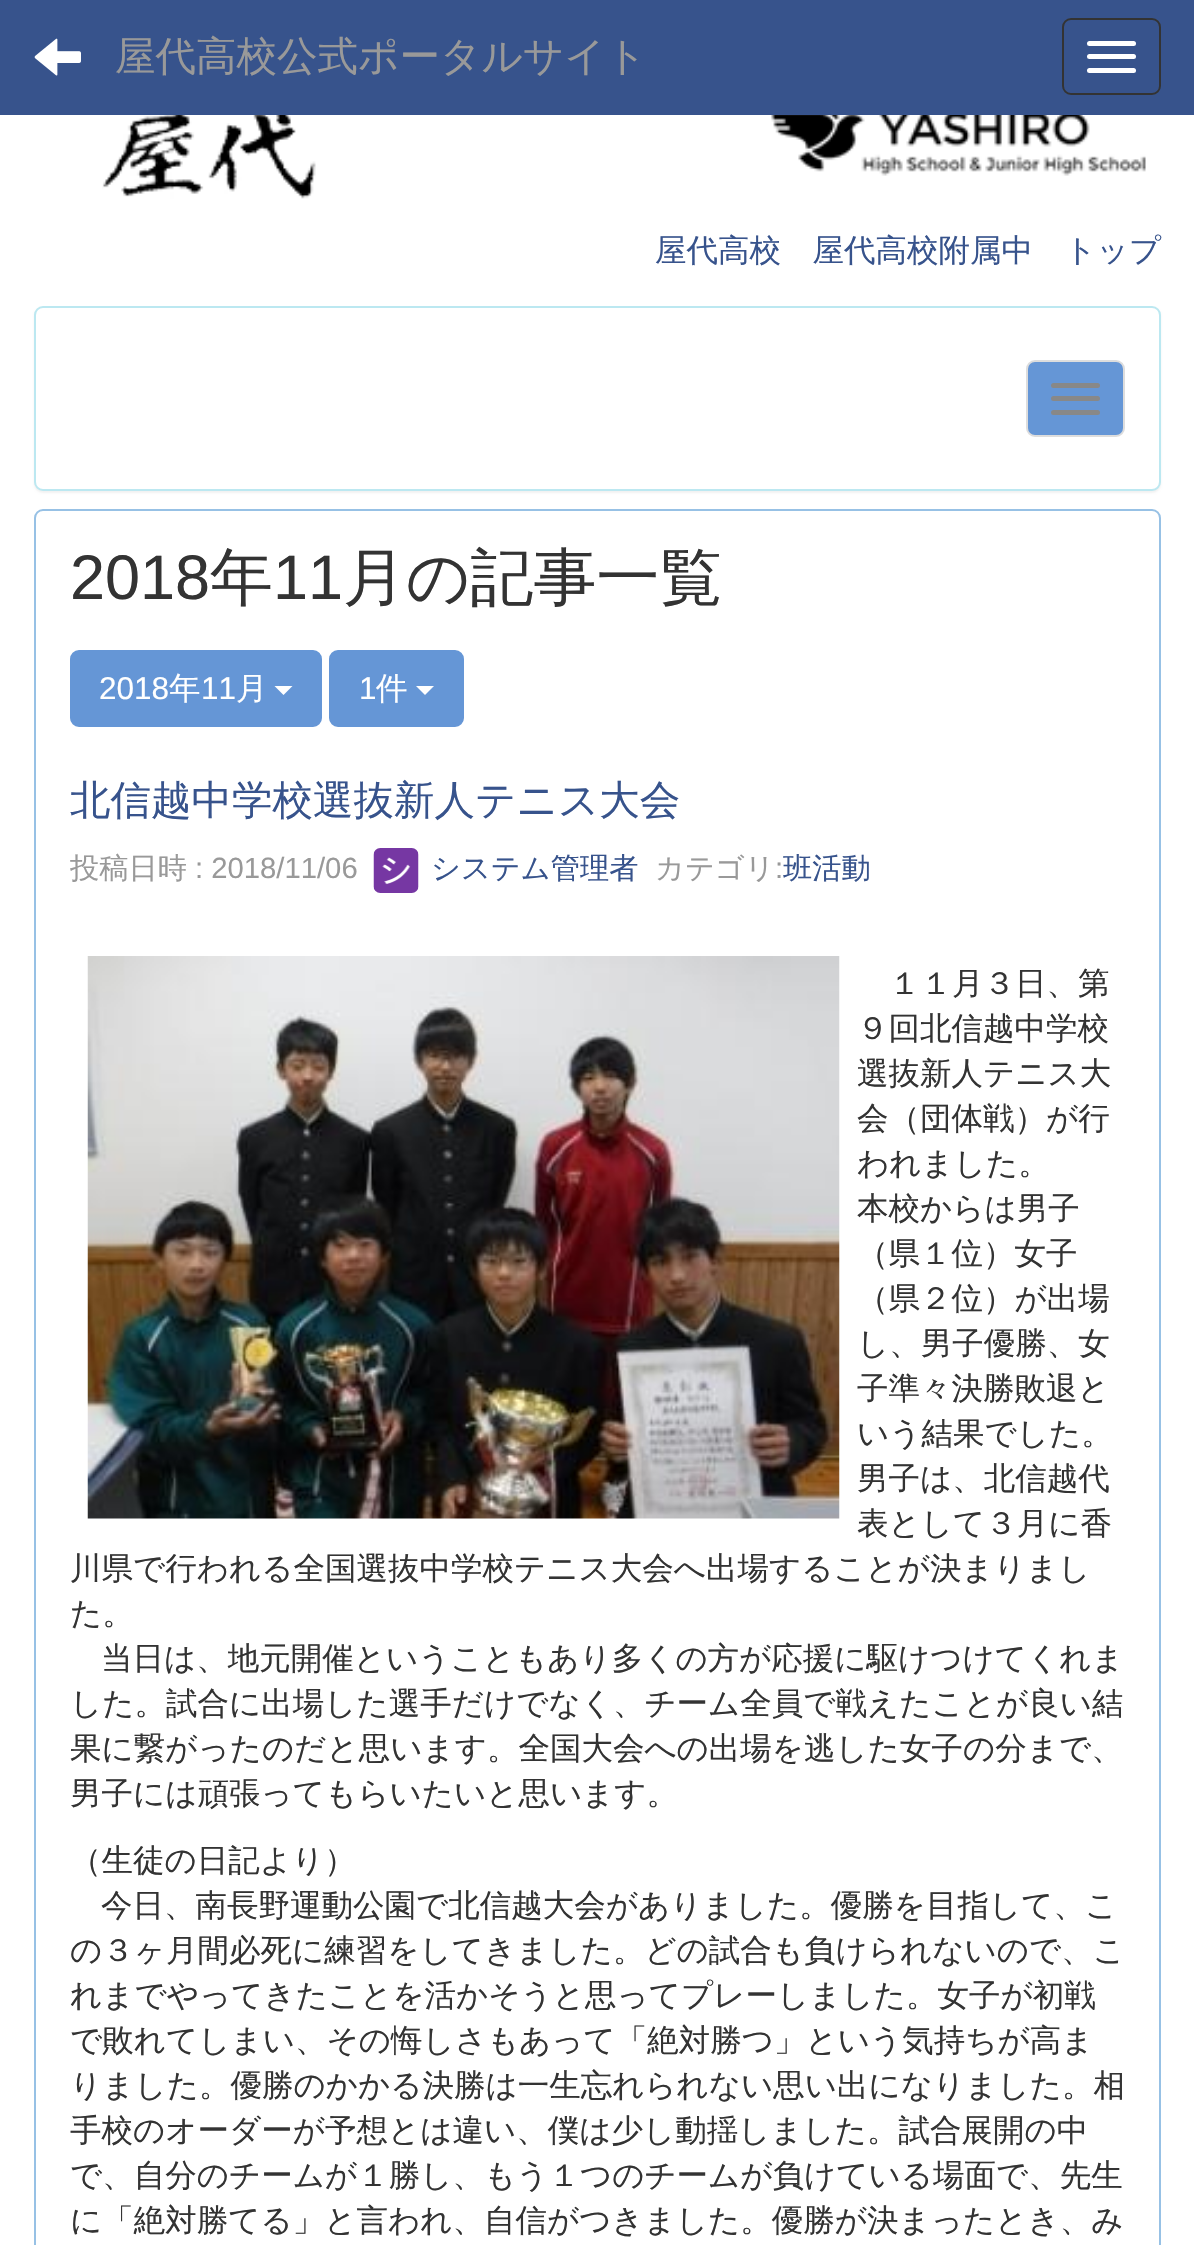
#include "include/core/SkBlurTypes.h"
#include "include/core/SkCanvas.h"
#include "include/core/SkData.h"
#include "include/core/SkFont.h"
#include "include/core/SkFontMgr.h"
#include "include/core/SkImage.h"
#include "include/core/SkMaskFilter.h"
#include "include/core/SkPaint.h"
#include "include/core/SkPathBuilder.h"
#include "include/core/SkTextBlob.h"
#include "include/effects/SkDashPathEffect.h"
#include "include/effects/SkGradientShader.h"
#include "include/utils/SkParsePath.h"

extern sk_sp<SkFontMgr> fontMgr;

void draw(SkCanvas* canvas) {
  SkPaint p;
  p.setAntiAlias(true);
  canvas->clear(SK_ColorWHITE);
  p.setColor(SkColorSetRGB(55, 83, 140));
  canvas->drawRect(SkRect::MakeLTRB(0, 0, 1194, 115), p);
  canvas->drawImageRect(SkImages::DeferredFromEncodedData(SkData::MakeFromFileName("images/1.png")), SkRect::MakeLTRB(34, 38, 81, 76), SkSamplingOptions());
  p.setStyle(SkPaint::kStroke_Style);
  p.setStrokeWidth(2);
  p.setColor(SkColorSetRGB(51, 51, 51));
  canvas->drawRoundRect(SkRect::MakeLTRB(1063, 19, 1160, 94), 8, 8, p);
  p.setStyle(SkPaint::kFill_Style);
  p.setColor(SK_ColorWHITE);
  canvas->drawRoundRect(SkRect::MakeLTRB(1087, 41, 1136, 46), 2.5f, 2.5f, p);
  canvas->drawRoundRect(SkRect::MakeLTRB(1087, 54, 1136, 59), 2.5f, 2.5f, p);
  canvas->drawRoundRect(SkRect::MakeLTRB(1087, 68, 1136, 73), 2.5f, 2.5f, p);
  canvas->drawImageRect(SkImages::DeferredFromEncodedData(SkData::MakeFromFileName("images/2.png")), SkRect::MakeLTRB(102, 115, 316, 199), SkSamplingOptions());
  canvas->drawImageRect(SkImages::DeferredFromEncodedData(SkData::MakeFromFileName("images/3.png")), SkRect::MakeLTRB(771, 115, 1146, 176), SkSamplingOptions());
  p.setColor(SkColorSetARGB(13, 0, 0, 0));
  p.setMaskFilter(SkMaskFilter::MakeBlur(kNormal_SkBlurStyle, 1));
  canvas->drawRoundRect(SkRect::MakeLTRB(34, 308, 1161, 493), 9, 9, p);
  p.setMaskFilter(nullptr);
  p.setColor(SK_ColorWHITE);
  canvas->drawRoundRect(SkRect::MakeLTRB(35, 307, 1160, 490), 8, 8, p);
  p.setStyle(SkPaint::kStroke_Style);
  p.setColor(SkColorSetRGB(188, 232, 241));
  canvas->drawRoundRect(SkRect::MakeLTRB(35, 307, 1160, 490), 8, 8, p);
  p.setStyle(SkPaint::kFill_Style);
  p.setColor(SkColorSetRGB(101, 150, 214));
  canvas->drawRoundRect(SkRect::MakeLTRB(1027, 361, 1124, 436), 8, 8, p);
  p.setStyle(SkPaint::kStroke_Style);
  p.setColor(SkColorSetRGB(221, 221, 221));
  canvas->drawRoundRect(SkRect::MakeLTRB(1027, 361, 1124, 436), 8, 8, p);
  p.setStyle(SkPaint::kFill_Style);
  p.setColor(SkColorSetRGB(136, 136, 136));
  canvas->drawRoundRect(SkRect::MakeLTRB(1051, 383, 1100, 388), 2.5f, 2.5f, p);
  canvas->drawRoundRect(SkRect::MakeLTRB(1051, 396, 1100, 401), 2.5f, 2.5f, p);
  canvas->drawRoundRect(SkRect::MakeLTRB(1051, 410, 1100, 415), 2.5f, 2.5f, p);
  p.setStyle(SkPaint::kStroke_Style);
  p.setColor(SkColorSetRGB(151, 193, 229));
  canvas->drawRoundRect(SkRect::MakeLTRB(35, 510, 1160, 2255), 8, 8, p);
  p.setStyle(SkPaint::kFill_Style);
  p.setColor(SkColorSetRGB(101, 150, 214));
  canvas->drawRoundRect(SkRect::MakeLTRB(71, 651, 321, 726), 8, 8, p);
  p.setStyle(SkPaint::kStroke_Style);
  canvas->drawRoundRect(SkRect::MakeLTRB(71, 651, 321, 726), 8, 8, p);
  p.setStyle(SkPaint::kFill_Style);
  p.setColor(SK_ColorWHITE);
  canvas->drawPath(SkPathBuilder().moveTo(274.5f, 686).lineTo(292.5f, 686).lineTo(283.5f, 695).close().detach(), p);
  p.setColor(SkColorSetRGB(101, 150, 214));
  canvas->drawRoundRect(SkRect::MakeLTRB(330, 651, 463, 726), 8, 8, p);
  p.setStyle(SkPaint::kStroke_Style);
  canvas->drawRoundRect(SkRect::MakeLTRB(330, 651, 463, 726), 8, 8, p);
  p.setStyle(SkPaint::kFill_Style);
  p.setColor(SK_ColorWHITE);
  canvas->drawPath(SkPathBuilder().moveTo(416, 686).lineTo(434, 686).lineTo(425, 695).close().detach(), p);
  canvas->drawImageRect(SkImages::DeferredFromEncodedData(SkData::MakeFromFileName("images/4.png")), SkRect::MakeLTRB(373, 848, 419, 893), SkSamplingOptions());
  canvas->drawImageRect(SkImages::DeferredFromEncodedData(SkData::MakeFromFileName("images/5.png")), SkRect::MakeLTRB(87, 956, 840, 1519), SkSamplingOptions());
  SkFont font1(fontMgr->matchFamilyStyle("WenQuanYi Zen Hei", SkFontStyle(500, SkFontStyle::kNormal_Width, SkFontStyle::kUpright_Slant)), 40.5f);
  font1.setSubpixel(true);
  p.setColor(SkColorSetRGB(153, 153, 153));
  canvas->drawString("屋代高校公式ポータルサイト", 115, 70, font1, p);
  SkFont font2(fontMgr->matchFamilyStyle("WenQuanYi Zen Hei", SkFontStyle(500, SkFontStyle::kNormal_Width, SkFontStyle::kUpright_Slant)), 31.5f);
  font2.setSubpixel(true);
  p.setColor(SkColorSetRGB(55, 83, 140));
  canvas->drawString("屋代高校　屋代高校附属中　トップ", 655, 261, font2, p);
  SkFont font3(fontMgr->matchFamilyStyle("Liberation Sans", SkFontStyle::Normal()), 63);
  font3.setSubpixel(true);
  p.setColor(SkColorSetRGB(51, 51, 51));
  canvas->drawString("2018", 70, 599, font3, p);
  SkFont font4(fontMgr->matchFamilyStyle("WenQuanYi Zen Hei", SkFontStyle(500, SkFontStyle::kNormal_Width, SkFontStyle::kUpright_Slant)), 63);
  font4.setSubpixel(true);
  canvas->drawString("年", 210, 599, font4, p);
  canvas->drawString("11", 273, 599, font3, p);
  canvas->drawString("月の記事一覧", 343, 599, font4, p);
  SkFont font5(fontMgr->matchFamilyStyle("Liberation Sans", SkFontStyle::Normal()), 31.5f);
  font5.setSubpixel(true);
  p.setColor(SK_ColorWHITE);
  canvas->drawString("2018", 99, 699, font5, p);
  canvas->drawString("年", 169, 699, font2, p);
  canvas->drawString("11", 201, 699, font5, p);
  canvas->drawString("月", 236, 699, font2, p);
  canvas->drawString("1", 359, 699, font5, p);
  canvas->drawString("件", 376, 699, font2, p);
  p.setColor(SkColorSetRGB(55, 83, 140));
  canvas->drawString("北信越中学校選抜新人テニス大会", 70, 814, font1, p);
  SkFont font6(fontMgr->matchFamilyStyle("WenQuanYi Zen Hei", SkFontStyle(500, SkFontStyle::kNormal_Width, SkFontStyle::kUpright_Slant)), 29.25f);
  font6.setSubpixel(true);
  p.setColor(SkColorSetRGB(153, 153, 153));
  canvas->drawString("投稿日時", 70, 878, font6, p);
  SkFont font7(fontMgr->matchFamilyStyle("Liberation Sans", SkFontStyle::Normal()), 29.25f);
  font7.setSubpixel(true);
  canvas->drawString(": 2018/11/06", 195, 878, font7, p);
  p.setColor(SkColorSetRGB(55, 83, 140));
  canvas->drawString("システム管理者", 431, 878, font6, p);
  p.setColor(SkColorSetRGB(153, 153, 153));
  canvas->drawString("カテゴリ", 655, 878, font6, p);
  canvas->drawString(":", 775, 878, font7, p);
  p.setColor(SkColorSetRGB(55, 83, 140));
  canvas->drawString("班活動", 783, 878, font6, p);
  p.setColor(SkColorSetRGB(51, 51, 51));
  canvas->drawString("１１月３日、第", 889, 994, font2, p);
  canvas->drawString("９回北信越中学校", 857, 1039, font2, p);
  canvas->drawString("選抜新人テニス大", 857, 1084, font2, p);
  canvas->drawString("会（団体戦）が行", 857, 1129, font2, p);
  canvas->drawString("われました。", 857, 1174, font2, p);
  canvas->drawString("本校からは男子", 857, 1219, font2, p);
  canvas->drawString("（県１位）女子", 857, 1264, font2, p);
  canvas->drawString("（県２位）が出場", 857, 1309, font2, p);
  canvas->drawString("し、男子優勝、女", 857, 1354, font2, p);
  canvas->drawString("子準々決勝敗退と", 857, 1399, font2, p);
  canvas->drawString("いう結果でした。", 857, 1444, font2, p);
  canvas->drawString("男子は、北信越代", 857, 1489, font2, p);
  canvas->drawString("表として３月に香", 857, 1534, font2, p);
  canvas->drawString("川県で行われる全国選抜中学校テニス大会へ出場することが決まりまし", 70, 1579, font2, p);
  canvas->drawString("た。", 70, 1624, font2, p);
  canvas->drawString("当日は、地元開催ということもあり多くの方が応援に駆けつけてくれま", 101, 1669, font2, p);
  canvas->drawString("した。試合に出場した選手だけでなく、チーム全員で戦えたことが良い結", 70, 1714, font2, p);
  canvas->drawString("果に繋がったのだと思います。全国大会への出場を逃した女子の分まで、", 70, 1759, font2, p);
  canvas->drawString("男子には頑張ってもらいたいと思います。", 70, 1804, font2, p);
  canvas->drawString("（生徒の日記より）", 70, 1871, font2, p);
  canvas->drawString("今日、南長野運動公園で北信越大会がありました。優勝を目指して、こ", 101, 1916, font2, p);
  canvas->drawString("の３ヶ月間必死に練習をしてきました。どの試合も負けられないので、こ", 70, 1961, font2, p);
  canvas->drawString("れまでやってきたことを活かそうと思ってプレーしました。女子が初戦", 70, 2006, font2, p);
  canvas->drawString("で敗れてしまい、その悔しさもあって「絶対勝つ」という気持ちが高ま", 70, 2051, font2, p);
  canvas->drawString("りました。優勝のかかる決勝は一生忘れられない思い出になりました。相", 70, 2096, font2, p);
  canvas->drawString("手校のオーダーが予想とは違い、僕は少し動揺しました。試合展開の中", 70, 2141, font2, p);
  canvas->drawString("で、自分のチームが１勝し、もう１つのチームが負けている場面で、先生", 70, 2186, font2, p);
  canvas->drawString("に「絶対勝てる」と言われ、自信がつきました。優勝が決まったとき、み", 70, 2231, font2, p);
}
